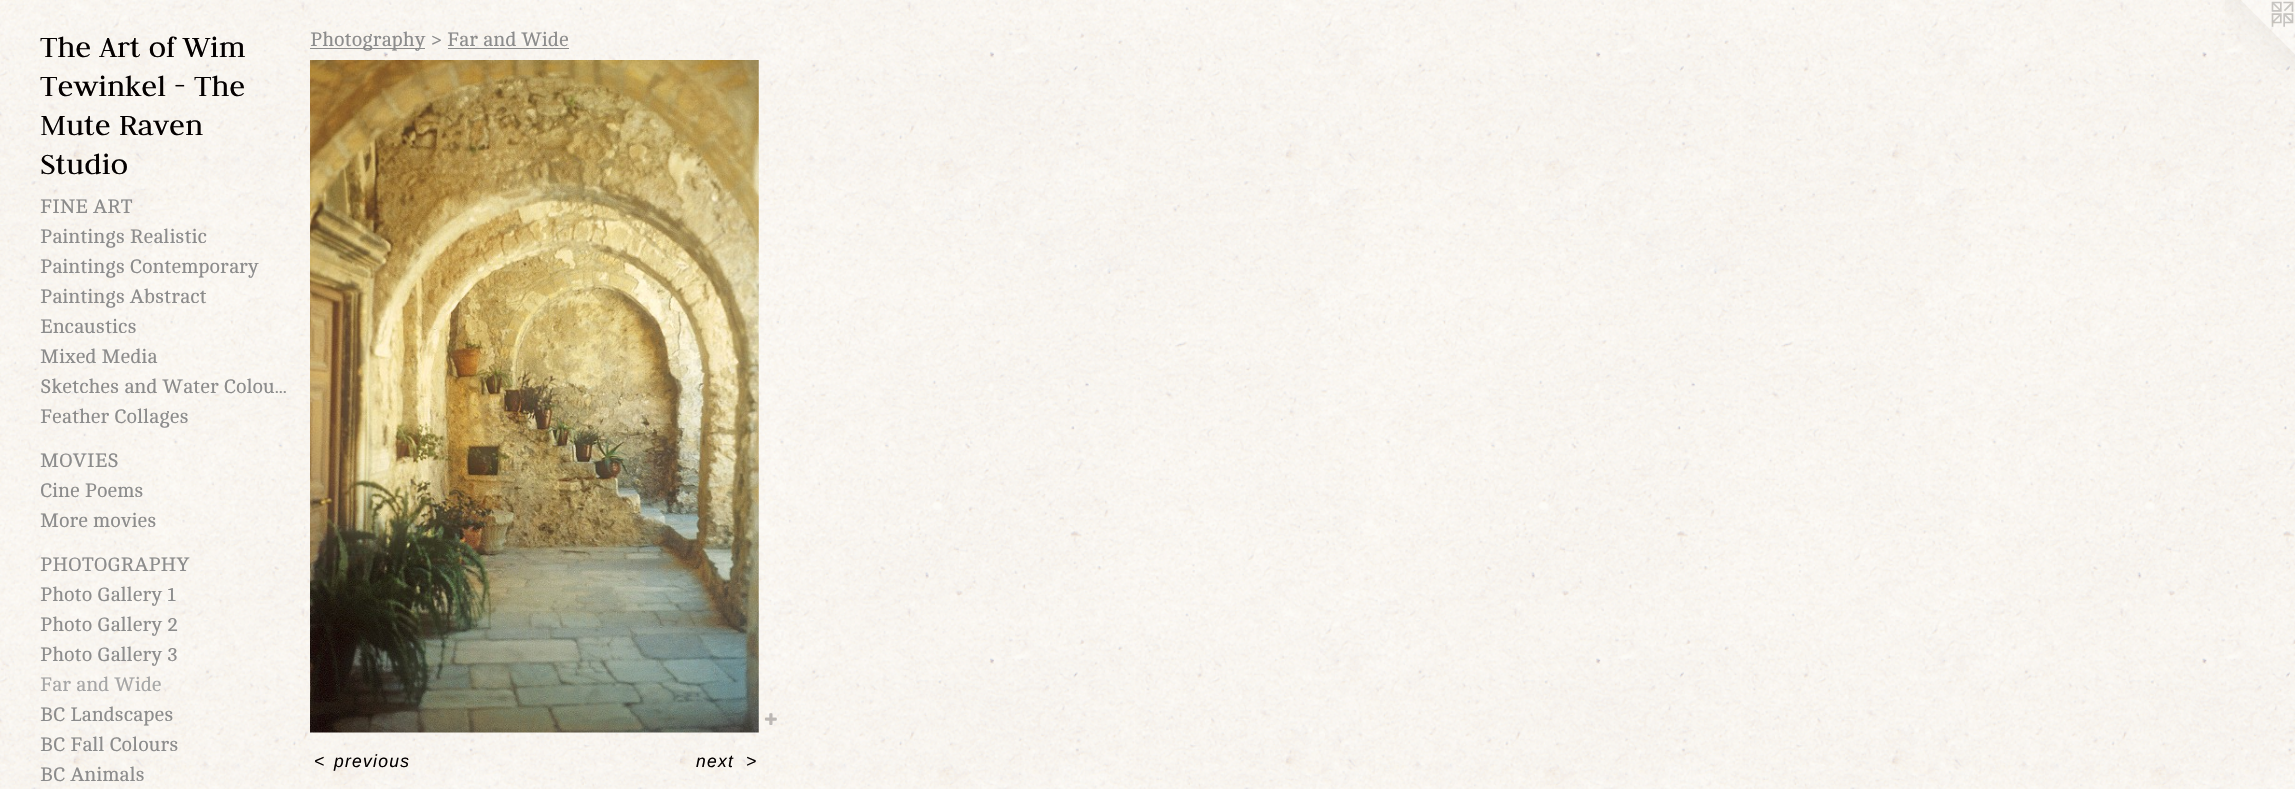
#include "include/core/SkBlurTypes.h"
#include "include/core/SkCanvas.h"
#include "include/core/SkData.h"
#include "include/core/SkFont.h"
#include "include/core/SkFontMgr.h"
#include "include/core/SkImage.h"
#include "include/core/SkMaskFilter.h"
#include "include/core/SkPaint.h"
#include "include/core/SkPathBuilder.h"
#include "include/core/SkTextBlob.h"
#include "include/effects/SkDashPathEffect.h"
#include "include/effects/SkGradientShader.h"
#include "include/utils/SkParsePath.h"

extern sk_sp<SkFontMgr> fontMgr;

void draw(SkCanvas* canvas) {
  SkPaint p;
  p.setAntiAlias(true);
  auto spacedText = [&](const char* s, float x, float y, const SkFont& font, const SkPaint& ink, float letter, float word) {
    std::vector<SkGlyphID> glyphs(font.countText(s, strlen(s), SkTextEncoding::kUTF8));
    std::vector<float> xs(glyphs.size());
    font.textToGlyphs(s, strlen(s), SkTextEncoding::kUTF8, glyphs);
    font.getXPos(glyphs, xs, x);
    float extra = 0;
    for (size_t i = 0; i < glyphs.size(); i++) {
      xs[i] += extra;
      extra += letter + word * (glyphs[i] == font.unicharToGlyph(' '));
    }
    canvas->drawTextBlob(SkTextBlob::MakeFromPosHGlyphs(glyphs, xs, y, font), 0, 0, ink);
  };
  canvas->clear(SK_ColorWHITE);
  canvas->drawImageRect(SkImages::DeferredFromEncodedData(SkData::MakeFromFileName("images/1.png")), SkRect::MakeLTRB(0, 0, 2295, 789), SkSamplingOptions());
  p.setColor(SkColorSetRGB(140, 140, 140));
  canvas->drawRect(SkRect::MakeLTRB(310, 48, 425, 49), p);
  canvas->drawRect(SkRect::MakeLTRB(448, 48, 569, 49), p);
  canvas->drawImageRect(SkImages::DeferredFromEncodedData(SkData::MakeFromFileName("images/2.png")), SkRect::MakeLTRB(310, 60, 759, 733), SkSamplingOptions());
  canvas->drawImageRect(SkImages::DeferredFromEncodedData(SkData::MakeFromFileName("images/3.png")), SkRect::MakeLTRB(765, 713, 777, 725), SkSamplingOptions());
  canvas->drawImageRect(SkImages::DeferredFromEncodedData(SkData::MakeFromFileName("images/4.png")), SkRect::MakeLTRB(2225, 0, 2295, 70), SkSamplingOptions());
  SkFont font1(fontMgr->matchFamilyStyle("Judson", SkFontStyle::Normal()), 32.5f);
  font1.setSubpixel(true);
  p.setColor(SkColorSetRGB(4, 0, 0));
  canvas->drawString("The Art of Wim", 40, 57, font1, p);
  canvas->drawString("Tewinkel - The", 40, 96, font1, p);
  canvas->drawString("Mute Raven", 40, 135, font1, p);
  canvas->drawString("Studio", 40, 174, font1, p);
  SkFont font2(fontMgr->matchFamilyStyle("Cambo", SkFontStyle::Normal()), 20);
  font2.setSubpixel(true);
  p.setColor(SkColorSetRGB(140, 140, 140));
  canvas->drawString("FINE ART", 40, 213, font2, p);
  canvas->drawString("Paintings Realistic", 40, 243, font2, p);
  canvas->drawString("Paintings Contemporary", 40, 273, font2, p);
  canvas->drawString("Paintings Abstract", 40, 303, font2, p);
  canvas->drawString("Encaustics", 40, 333, font2, p);
  canvas->drawString("Mixed Media", 40, 363, font2, p);
  canvas->drawString("Sketches and Water Colou...", 40, 393, font2, p);
  canvas->drawString("Feather Collages", 40, 423, font2, p);
  canvas->drawString("MOVIES", 40, 467, font2, p);
  canvas->drawString("Cine Poems", 40, 497, font2, p);
  canvas->drawString("More movies", 40, 527, font2, p);
  canvas->drawString("PHOTOGRAPHY", 40, 571, font2, p);
  canvas->drawString("Photo Gallery 1", 40, 601, font2, p);
  canvas->drawString("Photo Gallery 2", 40, 631, font2, p);
  canvas->drawString("Photo Gallery 3", 40, 661, font2, p);
  p.setColor(SkColorSetRGB(166, 166, 166));
  canvas->drawString("Far and Wide", 40, 691, font2, p);
  p.setColor(SkColorSetRGB(140, 140, 140));
  canvas->drawString("BC Landscapes", 40, 721, font2, p);
  canvas->drawString("BC Fall Colours", 40, 751, font2, p);
  canvas->drawString("BC Animals", 40, 781, font2, p);
  canvas->drawString("Photography > Far and Wide", 310, 46, font2, p);
  SkFont font3(fontMgr->matchFamilyStyle("Liberation Sans", SkFontStyle::Italic()), 17.5f);
  font3.setSubpixel(true);
  p.setColor(SkColorSetRGB(4, 0, 0));
  spacedText("<", 314, 767, font3, p, 1.25f, 0);
  spacedText("previous", 334, 767, font3, p, 1.25f, 0);
  spacedText("next", 696, 767, font3, p, 1.25f, 0);
  spacedText(">", 746, 767, font3, p, 1.25f, 0);
}
